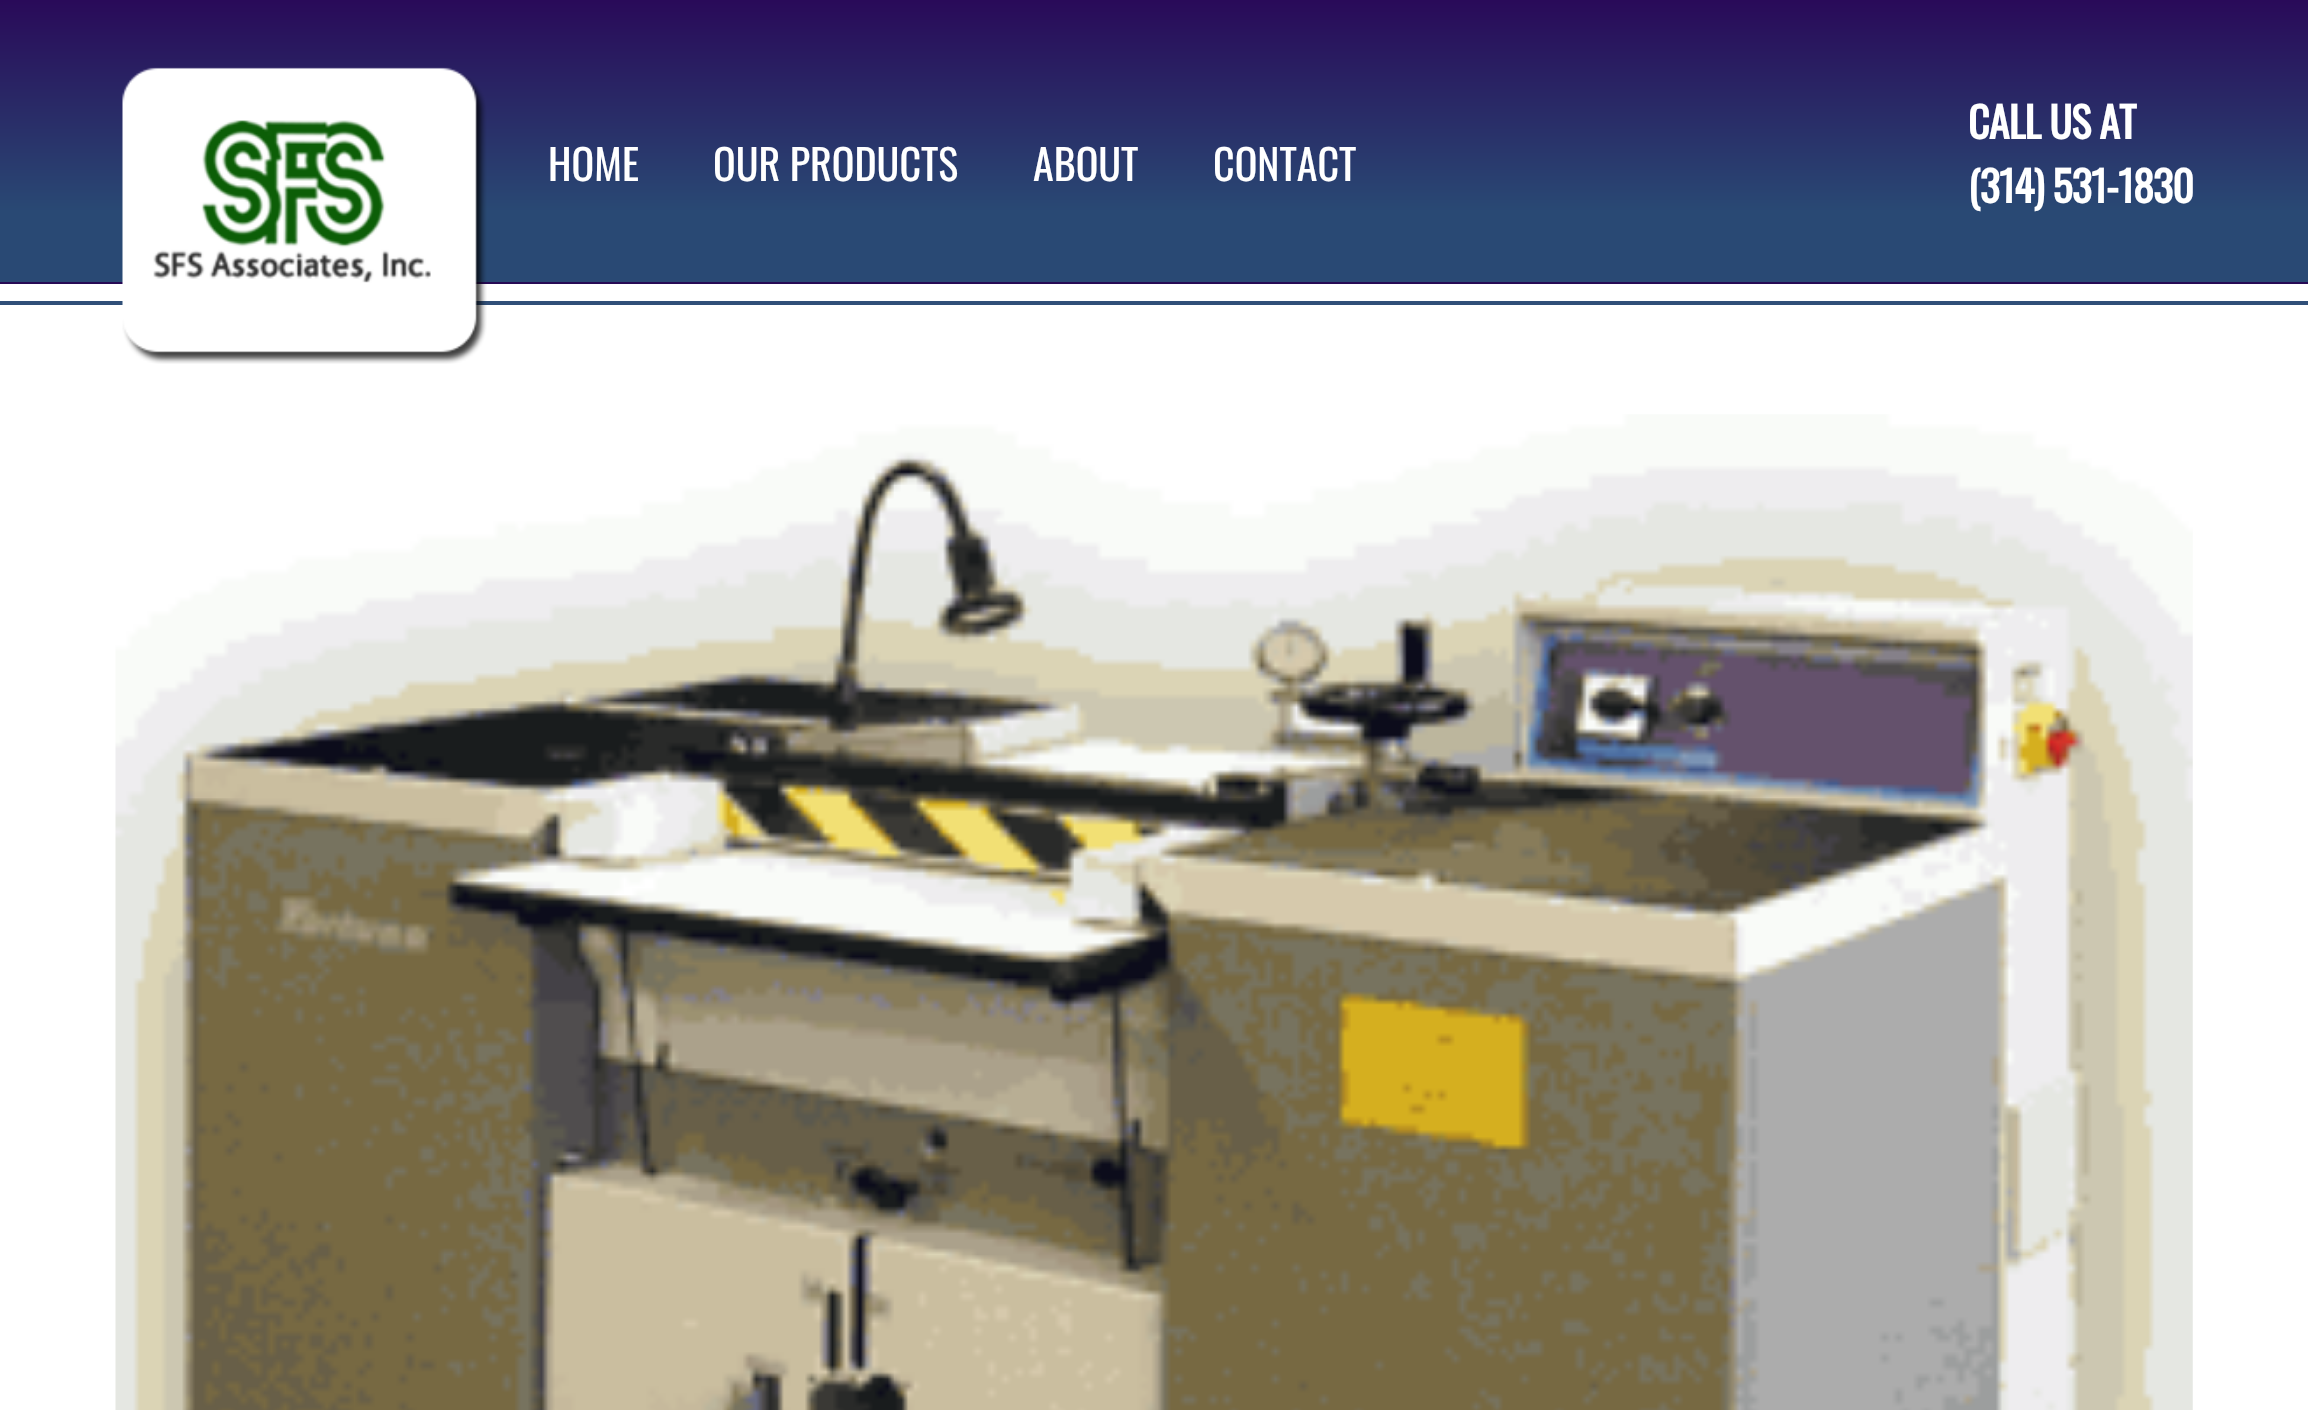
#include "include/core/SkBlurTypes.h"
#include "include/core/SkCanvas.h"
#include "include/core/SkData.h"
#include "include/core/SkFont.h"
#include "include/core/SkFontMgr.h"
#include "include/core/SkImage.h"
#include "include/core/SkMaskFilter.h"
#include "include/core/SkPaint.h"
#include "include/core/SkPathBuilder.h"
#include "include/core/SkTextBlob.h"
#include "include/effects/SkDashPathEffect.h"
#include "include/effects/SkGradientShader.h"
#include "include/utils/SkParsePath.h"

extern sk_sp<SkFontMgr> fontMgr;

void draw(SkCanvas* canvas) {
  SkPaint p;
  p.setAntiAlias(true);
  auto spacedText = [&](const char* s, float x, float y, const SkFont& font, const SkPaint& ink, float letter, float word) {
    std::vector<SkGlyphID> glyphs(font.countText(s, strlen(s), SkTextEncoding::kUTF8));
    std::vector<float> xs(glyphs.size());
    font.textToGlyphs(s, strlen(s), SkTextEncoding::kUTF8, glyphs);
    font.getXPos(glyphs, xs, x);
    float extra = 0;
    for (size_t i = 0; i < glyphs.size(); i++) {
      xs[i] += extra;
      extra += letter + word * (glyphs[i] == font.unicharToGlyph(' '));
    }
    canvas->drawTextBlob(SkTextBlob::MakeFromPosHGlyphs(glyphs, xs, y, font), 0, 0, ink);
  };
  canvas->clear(SK_ColorWHITE);
  {
    const SkColor colors[] = {SkColorSetRGB(41, 10, 89), SkColorSetRGB(41, 73, 116)};
    const float stops[] = {0, 0.75f};
    const SkPoint ends[] = {{1154, 0}, {1154, 282}};
    p.setShader(SkGradientShader::MakeLinear(ends, colors, stops, 2, SkTileMode::kClamp));
    p.setAlpha(255);
  }
  canvas->drawRect(SkRect::MakeLTRB(0, 0, 2308, 282), p);
  p.setShader(nullptr);
  p.setColor(SkColorSetRGB(39, 10, 85));
  canvas->drawRect(SkRect::MakeLTRB(0, 282, 2308, 284), p);
  p.setColor(SkColorSetRGB(48, 79, 120));
  canvas->drawRect(SkRect::MakeLTRB(0, 301, 2308, 305), p);
  canvas->drawImageRect(SkImages::DeferredFromEncodedData(SkData::MakeFromFileName("images/1.png")), SkRect::MakeLTRB(122, 67, 487, 364), SkSamplingOptions());
  canvas->drawImageRect(SkImages::DeferredFromEncodedData(SkData::MakeFromFileName("images/2.png")), SkRect::MakeLTRB(115, 414, 2193, 1410), SkSamplingOptions());
  SkFont font1(fontMgr->matchFamilyStyle("Oswald", SkFontStyle::Normal()), 42);
  font1.setSubpixel(true);
  p.setColor(SK_ColorWHITE);
  canvas->drawString("HOME", 548, 181, font1, p);
  canvas->drawString("OUR PRODUCTS", 713, 181, font1, p);
  canvas->drawString("ABOUT", 1033, 181, font1, p);
  canvas->drawString("CONTACT", 1213, 181, font1, p);
  SkFont font2(fontMgr->matchFamilyStyle("Oswald", SkFontStyle::Bold()), 42);
  font2.setSubpixel(true);
  spacedText("CALL US AT", 1968, 139, font2, p, -0.8f, 0);
  spacedText("(314) 531-1830", 1968, 203, font2, p, -0.8f, 0);
}
